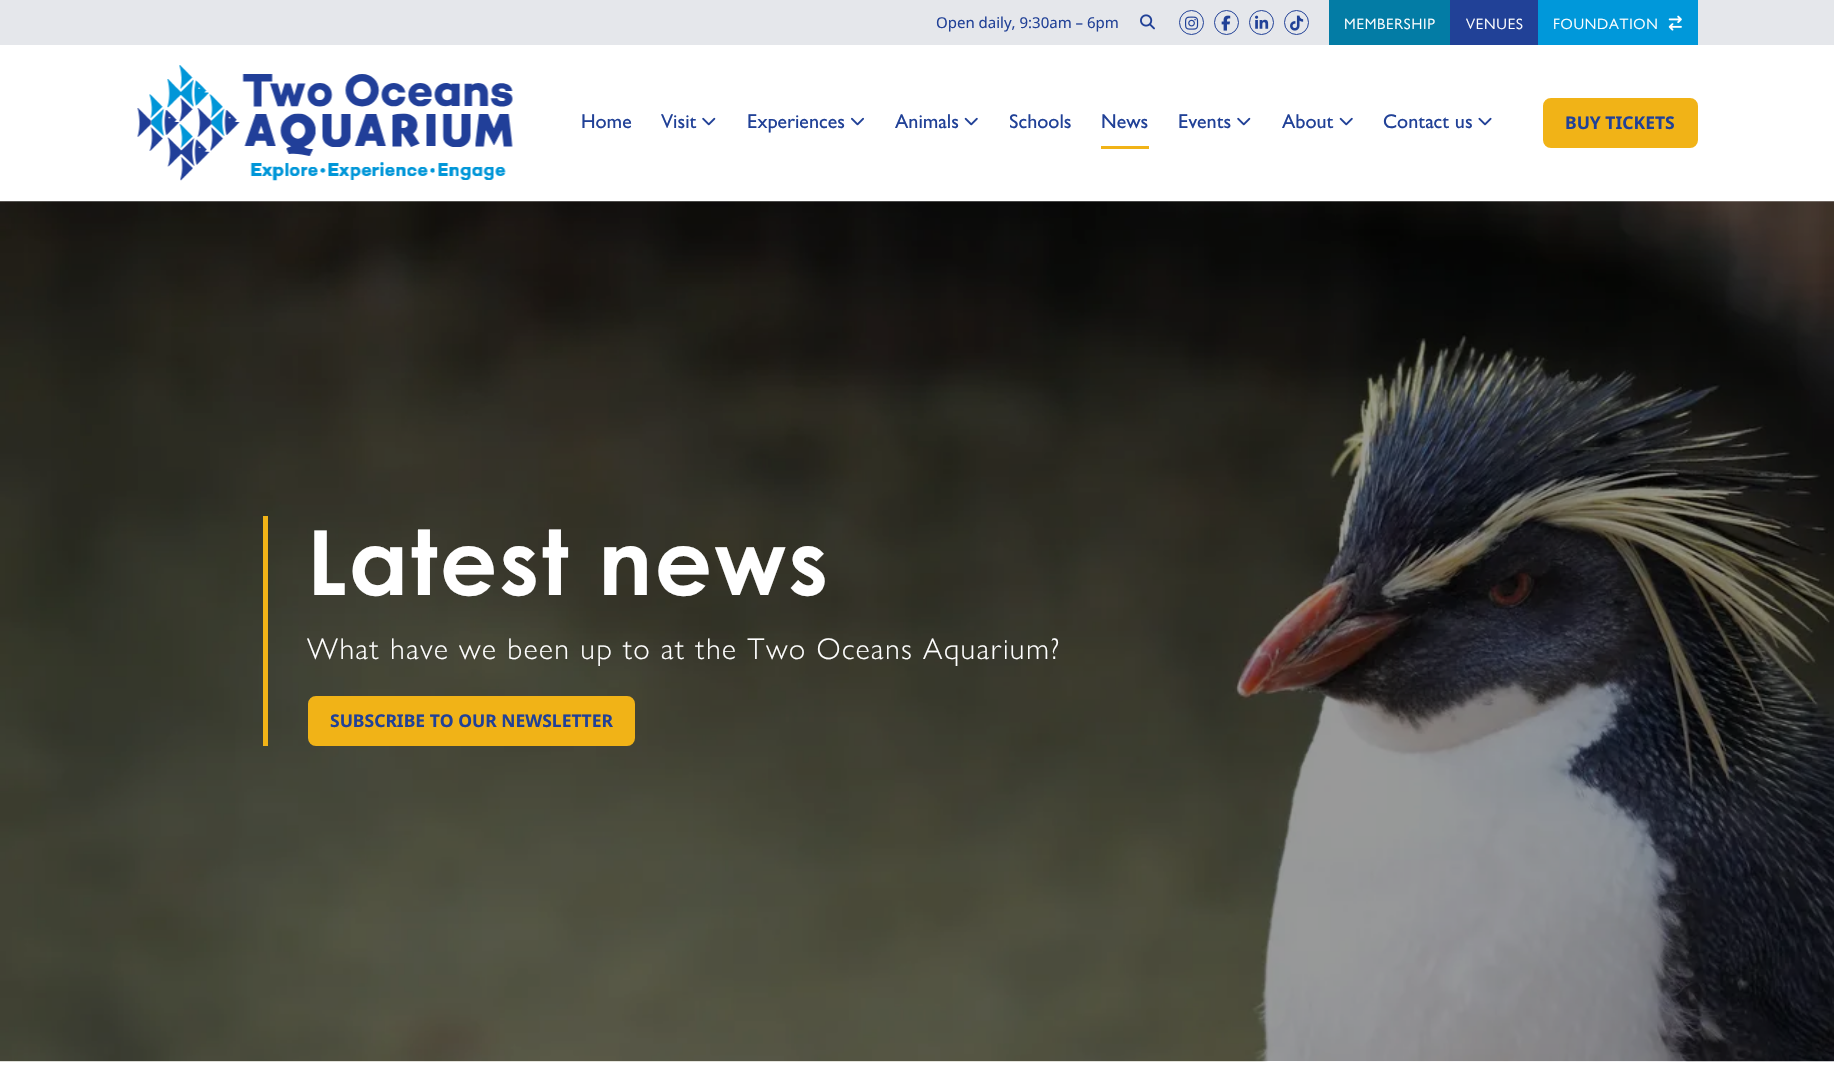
#include "include/core/SkBlurTypes.h"
#include "include/core/SkCanvas.h"
#include "include/core/SkData.h"
#include "include/core/SkFont.h"
#include "include/core/SkFontMgr.h"
#include "include/core/SkImage.h"
#include "include/core/SkMaskFilter.h"
#include "include/core/SkPaint.h"
#include "include/core/SkPathBuilder.h"
#include "include/core/SkTextBlob.h"
#include "include/effects/SkDashPathEffect.h"
#include "include/effects/SkGradientShader.h"
#include "include/utils/SkParsePath.h"

extern sk_sp<SkFontMgr> fontMgr;

void draw(SkCanvas* canvas) {
  SkPaint p;
  p.setAntiAlias(true);
  auto spacedText = [&](const char* s, float x, float y, const SkFont& font, const SkPaint& ink, float letter, float word) {
    std::vector<SkGlyphID> glyphs(font.countText(s, strlen(s), SkTextEncoding::kUTF8));
    std::vector<float> xs(glyphs.size());
    font.textToGlyphs(s, strlen(s), SkTextEncoding::kUTF8, glyphs);
    font.getXPos(glyphs, xs, x);
    float extra = 0;
    for (size_t i = 0; i < glyphs.size(); i++) {
      xs[i] += extra;
      extra += letter + word * (glyphs[i] == font.unicharToGlyph(' '));
    }
    canvas->drawTextBlob(SkTextBlob::MakeFromPosHGlyphs(glyphs, xs, y, font), 0, 0, ink);
  };
  canvas->clear(SK_ColorWHITE);
  p.setColor(SkColorSetRGB(229, 231, 235));
  canvas->drawRect(SkRect::MakeLTRB(0, 0, 1834, 45), p);
  canvas->drawImageRect(SkImages::DeferredFromEncodedData(SkData::MakeFromFileName("images/1.png")), SkRect::MakeLTRB(1140, 14, 1155, 30), SkSamplingOptions());
  p.setStyle(SkPaint::kStroke_Style);
  p.setStrokeWidth(1);
  p.setColor(SkColorSetRGB(33, 65, 151));
  canvas->drawCircle(1191.5f, 22.5f, 12, p);
  canvas->drawImageRect(SkImages::DeferredFromEncodedData(SkData::MakeFromFileName("images/2.png")), SkRect::MakeLTRB(1185, 16, 1199, 30), SkSamplingOptions());
  canvas->drawCircle(1226.5f, 22.5f, 12, p);
  canvas->drawImageRect(SkImages::DeferredFromEncodedData(SkData::MakeFromFileName("images/3.png")), SkRect::MakeLTRB(1221, 15, 1231, 31), SkSamplingOptions());
  canvas->drawCircle(1261.5f, 22.5f, 12, p);
  canvas->drawImageRect(SkImages::DeferredFromEncodedData(SkData::MakeFromFileName("images/4.png")), SkRect::MakeLTRB(1255, 15, 1269, 29), SkSamplingOptions());
  canvas->drawCircle(1296.5f, 22.5f, 12, p);
  canvas->drawImageRect(SkImages::DeferredFromEncodedData(SkData::MakeFromFileName("images/5.png")), SkRect::MakeLTRB(1290, 15, 1304, 31), SkSamplingOptions());
  p.setStyle(SkPaint::kFill_Style);
  p.setColor(SkColorSetRGB(3, 124, 165));
  canvas->drawRect(SkRect::MakeLTRB(1329, 0, 1450, 45), p);
  p.setColor(SkColorSetRGB(33, 65, 151));
  canvas->drawRect(SkRect::MakeLTRB(1450, 0, 1538, 45), p);
  p.setColor(SkColorSetRGB(0, 152, 218));
  canvas->drawRect(SkRect::MakeLTRB(1538, 0, 1698, 45), p);
  canvas->drawImageRect(SkImages::DeferredFromEncodedData(SkData::MakeFromFileName("images/6.png")), SkRect::MakeLTRB(1668, 15, 1682, 31), SkSamplingOptions());
  canvas->drawImageRect(SkImages::DeferredFromEncodedData(SkData::MakeFromFileName("images/7.png")), SkRect::MakeLTRB(137, 65, 513, 181), SkSamplingOptions());
  canvas->drawImageRect(SkImages::DeferredFromEncodedData(SkData::MakeFromFileName("images/8.png")), SkRect::MakeLTRB(702, 117, 716, 126), SkSamplingOptions());
  canvas->drawImageRect(SkImages::DeferredFromEncodedData(SkData::MakeFromFileName("images/9.png")), SkRect::MakeLTRB(851, 117, 864, 126), SkSamplingOptions());
  canvas->drawImageRect(SkImages::DeferredFromEncodedData(SkData::MakeFromFileName("images/10.png")), SkRect::MakeLTRB(964, 117, 978, 126), SkSamplingOptions());
  p.setColor(SkColorSetRGB(241, 179, 23));
  canvas->drawRect(SkRect::MakeLTRB(1101, 146, 1149, 149), p);
  canvas->drawImageRect(SkImages::DeferredFromEncodedData(SkData::MakeFromFileName("images/8.png")), SkRect::MakeLTRB(1237, 117, 1251, 126), SkSamplingOptions());
  canvas->drawImageRect(SkImages::DeferredFromEncodedData(SkData::MakeFromFileName("images/10.png")), SkRect::MakeLTRB(1339, 117, 1353, 126), SkSamplingOptions());
  canvas->drawImageRect(SkImages::DeferredFromEncodedData(SkData::MakeFromFileName("images/11.png")), SkRect::MakeLTRB(1478, 117, 1492, 126), SkSamplingOptions());
  canvas->drawRoundRect(SkRect::MakeLTRB(1544.5f, 99.5f, 1696.5f, 146.5f), 6.5f, 6.5f, p);
  p.setStyle(SkPaint::kStroke_Style);
  p.setStrokeWidth(3);
  canvas->drawRoundRect(SkRect::MakeLTRB(1544.5f, 99.5f, 1696.5f, 146.5f), 6.5f, 6.5f, p);
  canvas->drawImageRect(SkImages::DeferredFromEncodedData(SkData::MakeFromFileName("images/12.png")), SkRect::MakeLTRB(0, 201, 1834, 1062), SkSamplingOptions());
  p.setStyle(SkPaint::kFill_Style);
  canvas->drawRect(SkRect::MakeLTRB(263, 516, 268, 746), p);
  canvas->drawRoundRect(SkRect::MakeLTRB(309.5f, 697.5f, 633.5f, 744.5f), 6.5f, 6.5f, p);
  p.setStyle(SkPaint::kStroke_Style);
  canvas->drawRoundRect(SkRect::MakeLTRB(309.5f, 697.5f, 633.5f, 744.5f), 6.5f, 6.5f, p);
  SkFont font1(fontMgr->matchFamilyStyle("Noto Sans", SkFontStyle::Normal()), 15);
  font1.setSubpixel(true);
  p.setStyle(SkPaint::kFill_Style);
  p.setColor(SkColorSetRGB(33, 65, 151));
  canvas->drawString("Open daily, 9:30am – 6pm", 936, 28, font1, p);
  SkFont font2(fontMgr->matchFamilyStyle("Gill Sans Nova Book", SkFontStyle::Normal()), 15);
  font2.setSubpixel(true);
  p.setColor(SK_ColorWHITE);
  spacedText("MEMBERSHIP", 1344, 29, font2, p, 0.75f, 0);
  spacedText("VENUES", 1466, 29, font2, p, 0.75f, 0);
  spacedText("FOUNDATION", 1553, 29, font2, p, 0.75f, 0);
  SkFont font3(fontMgr->matchFamilyStyle("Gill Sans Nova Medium", SkFontStyle(500, SkFontStyle::kNormal_Width, SkFontStyle::kUpright_Slant)), 20);
  font3.setSubpixel(true);
  p.setColor(SkColorSetRGB(33, 65, 151));
  canvas->drawString("Home", 581, 128, font3, p);
  canvas->drawString("Visit", 661, 128, font3, p);
  canvas->drawString("Experiences", 747, 128, font3, p);
  canvas->drawString("Animals", 895, 128, font3, p);
  canvas->drawString("Schools", 1009, 128, font3, p);
  canvas->drawString("News", 1101, 128, font3, p);
  canvas->drawString("Events", 1178, 128, font3, p);
  canvas->drawString("About", 1282, 128, font3, p);
  canvas->drawString("Contact us", 1383, 128, font3, p);
  SkFont font4(fontMgr->matchFamilyStyle("Noto Sans", SkFontStyle::Bold()), 17.5f);
  font4.setSubpixel(true);
  canvas->drawString("BUY TICKETS", 1565, 129, font4, p);
  SkFont font5(fontMgr->matchFamilyStyle("Century Gothic", SkFontStyle::Bold()), 90);
  font5.setSubpixel(true);
  p.setColor(SK_ColorWHITE);
  spacedText("Latest news", 307, 595, font5, p, 2.25f, 0);
  SkFont font6(fontMgr->matchFamilyStyle("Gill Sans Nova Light", SkFontStyle(300, SkFontStyle::kNormal_Width, SkFontStyle::kUpright_Slant)), 30);
  font6.setSubpixel(true);
  spacedText("What have we been up to at the Two Oceans Aquarium?", 307, 659, font6, p, 1.5f, 0);
  p.setColor(SkColorSetRGB(33, 65, 151));
  canvas->drawString("SUBSCRIBE TO OUR NEWSLETTER", 330, 727, font4, p);
}
